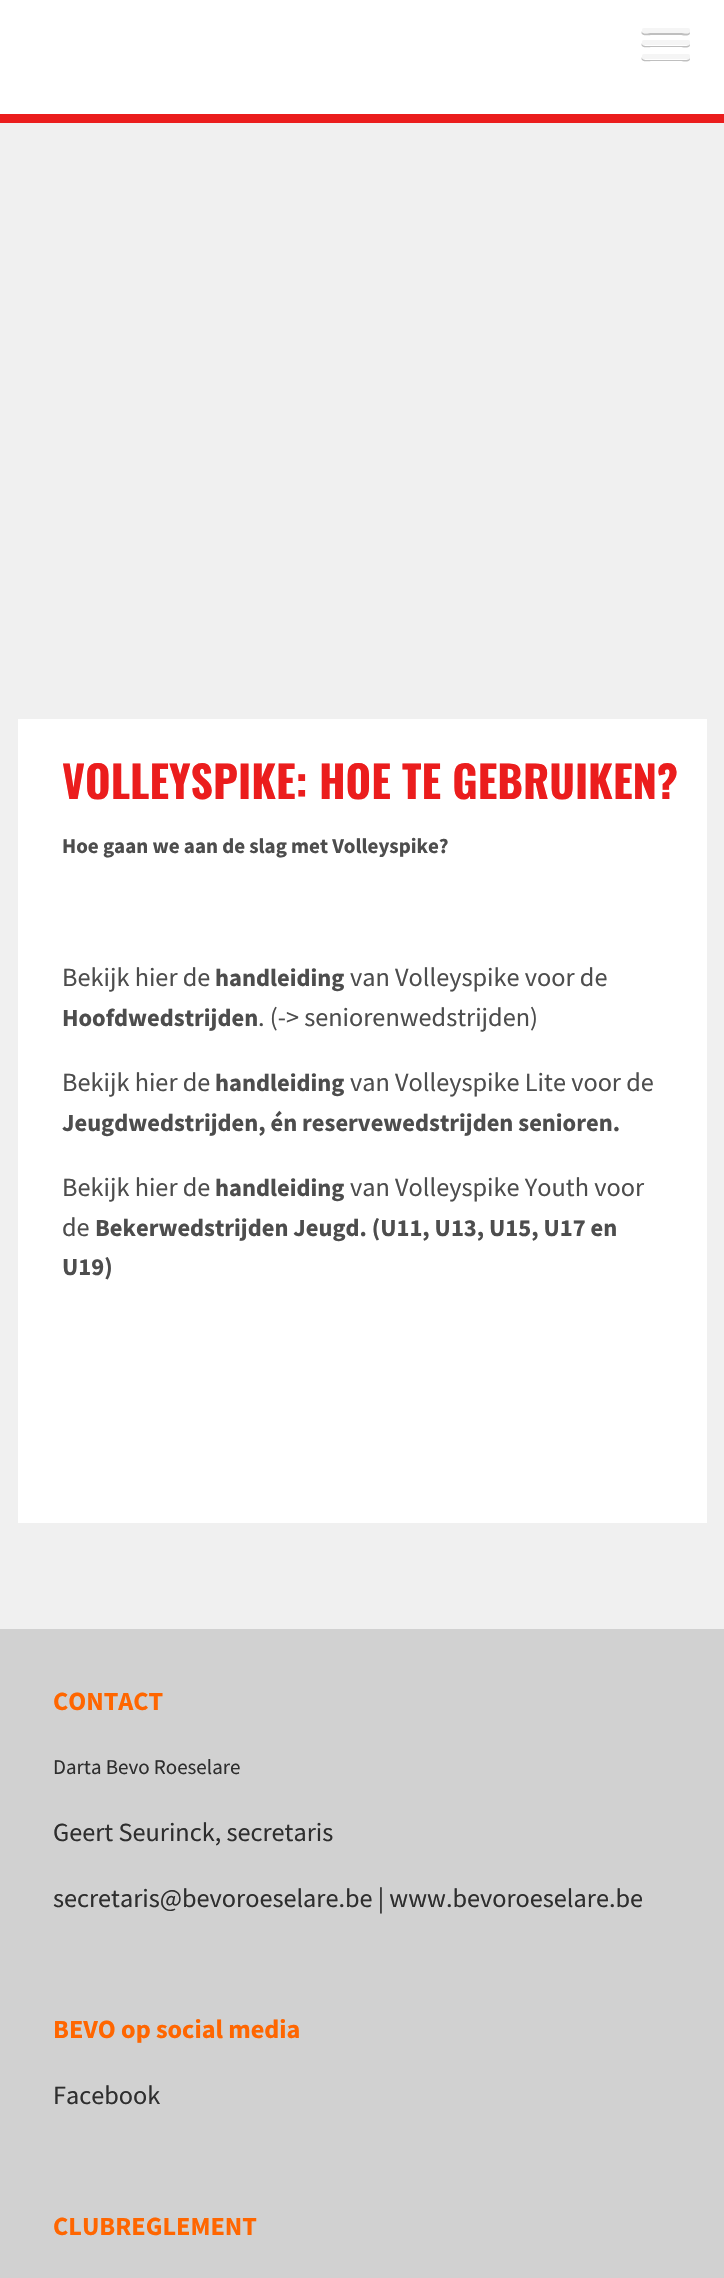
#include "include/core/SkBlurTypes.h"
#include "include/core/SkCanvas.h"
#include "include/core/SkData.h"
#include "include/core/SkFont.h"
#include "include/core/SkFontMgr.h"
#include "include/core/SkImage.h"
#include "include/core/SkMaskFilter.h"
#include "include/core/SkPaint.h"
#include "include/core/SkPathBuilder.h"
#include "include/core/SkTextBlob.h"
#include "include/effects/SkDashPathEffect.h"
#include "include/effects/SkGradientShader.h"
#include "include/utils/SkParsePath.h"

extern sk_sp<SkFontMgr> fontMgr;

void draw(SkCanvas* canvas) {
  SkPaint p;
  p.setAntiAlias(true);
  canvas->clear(SkColorSetRGB(240, 240, 240));
  p.setColor(SK_ColorWHITE);
  canvas->drawRect(SkRect::MakeLTRB(0, 0, 724, 114), p);
  p.setColor(SkColorSetRGB(235, 29, 29));
  canvas->drawRect(SkRect::MakeLTRB(0, 114, 724, 123), p);
  p.setColor(SkColorSetRGB(191, 191, 191));
  canvas->drawPath(SkPathBuilder().moveTo(642, 31).cubicTo(639, 37, 651, 35, 651, 35).lineTo(681, 35).cubicTo(681, 35, 690, 37, 690, 33).lineTo(690, 31).cubicTo(690, 35, 684, 33, 680, 33).lineTo(651, 33).cubicTo(649, 33, 642, 35, 642, 31).close().detach(), p);
  p.setColor(SkColorSetRGB(245, 245, 245));
  canvas->drawRoundRect(SkRect::MakeLTRB(642, 28, 690, 33), 2, 2, p);
  p.setColor(SkColorSetRGB(191, 191, 191));
  canvas->drawPath(SkPathBuilder().moveTo(642, 43).cubicTo(639, 49, 651, 47, 651, 47).lineTo(681, 47).cubicTo(681, 47, 690, 49, 690, 45).lineTo(690, 43).cubicTo(690, 47, 684, 46, 680, 46).lineTo(651, 46).cubicTo(648, 46, 642, 47, 642, 43).close().detach(), p);
  p.setColor(SkColorSetRGB(245, 245, 245));
  canvas->drawRoundRect(SkRect::MakeLTRB(642, 40, 690, 45), 2, 2, p);
  p.setColor(SkColorSetRGB(191, 191, 191));
  canvas->drawPath(SkPathBuilder().moveTo(642, 57).cubicTo(639, 63, 651, 61, 651, 61).lineTo(681, 61).cubicTo(681, 61, 690, 63, 690, 59).lineTo(690, 57).cubicTo(690, 61, 684, 60, 680, 60).lineTo(651, 60).cubicTo(648, 60, 642, 61, 642, 57).close().detach(), p);
  p.setColor(SkColorSetRGB(245, 245, 245));
  canvas->drawRoundRect(SkRect::MakeLTRB(642, 54, 690, 59), 2, 2, p);
  p.setColor(SK_ColorWHITE);
  canvas->drawRect(SkRect::MakeLTRB(18, 719, 707, 1523), p);
  p.setColor(SkColorSetRGB(209, 209, 209));
  canvas->drawRect(SkRect::MakeLTRB(0, 1629, 724, 2278), p);
  SkFont font1(fontMgr->matchFamilyStyle("Oswald", SkFontStyle::Bold()), 43.75f);
  font1.setSubpixel(true);
  p.setColor(SkColorSetRGB(235, 29, 29));
  canvas->drawString("VOLLEYSPIKE: HOE TE GEBRUIKEN?", 62, 799, font1, p);
  SkFont font2(fontMgr->matchFamilyStyle("Source Sans Pro", SkFontStyle::Bold()), 21);
  font2.setSubpixel(true);
  p.setColor(SkColorSetRGB(77, 77, 77));
  canvas->drawString("Hoe gaan we aan de slag met Volleyspike?", 62, 853, font2, p);
  SkFont font3(fontMgr->matchFamilyStyle("Source Sans Pro", SkFontStyle::Normal()), 26.25f);
  font3.setSubpixel(true);
  canvas->drawString("Bekijk hier de", 62, 986, font3, p);
  SkFont font4(fontMgr->matchFamilyStyle("Source Sans Pro", SkFontStyle::Bold()), 24.5f);
  font4.setSubpixel(true);
  canvas->drawString("handleiding", 215, 986, font4, p);
  canvas->drawString("van Volleyspike voor de", 350, 986, font3, p);
  canvas->drawString("Hoofdwedstrijden", 62, 1026, font4, p);
  canvas->drawString(". (-> seniorenwedstrijden)", 258, 1026, font3, p);
  canvas->drawString("Bekijk hier de", 62, 1091, font3, p);
  canvas->drawString("handleiding", 215, 1091, font4, p);
  canvas->drawString("van Volleyspike Lite voor de", 350, 1091, font3, p);
  canvas->drawString("Jeugdwedstrijden, én reservewedstrijden senioren.", 62, 1131, font4, p);
  canvas->drawString("Bekijk hier de", 62, 1196, font3, p);
  canvas->drawString("handleiding", 215, 1196, font4, p);
  canvas->drawString("van Volleyspike Youth voor", 350, 1196, font3, p);
  canvas->drawString("de", 62, 1236, font3, p);
  canvas->drawString("Bekerwedstrijden Jeugd. (U11, U13, U15, U17 en", 95, 1236, font4, p);
  canvas->drawString("U19)", 62, 1275, font4, p);
  SkFont font5(fontMgr->matchFamilyStyle("Source Sans Pro", SkFontStyle::Bold()), 26.25f);
  font5.setSubpixel(true);
  p.setColor(SkColorSetRGB(255, 102, 0));
  canvas->drawString("CONTACT", 53, 1710, font5, p);
  SkFont font6(fontMgr->matchFamilyStyle("Source Sans Pro", SkFontStyle::Normal()), 21);
  font6.setSubpixel(true);
  p.setColor(SkColorSetRGB(46, 46, 46));
  canvas->drawString("Darta Bevo Roeselare", 53, 1774, font6, p);
  canvas->drawString("Geert Seurinck, secretaris", 53, 1841, font3, p);
  canvas->drawString("secretaris@bevoroeselare.be | www.bevoroeselare.be", 53, 1907, font3, p);
  p.setColor(SkColorSetRGB(255, 102, 0));
  canvas->drawString("BEVO op social media", 53, 2038, font5, p);
  p.setColor(SkColorSetRGB(46, 46, 46));
  canvas->drawString("Facebook", 53, 2104, font3, p);
  p.setColor(SkColorSetRGB(255, 102, 0));
  canvas->drawString("CLUBREGLEMENT", 53, 2235, font5, p);
}
